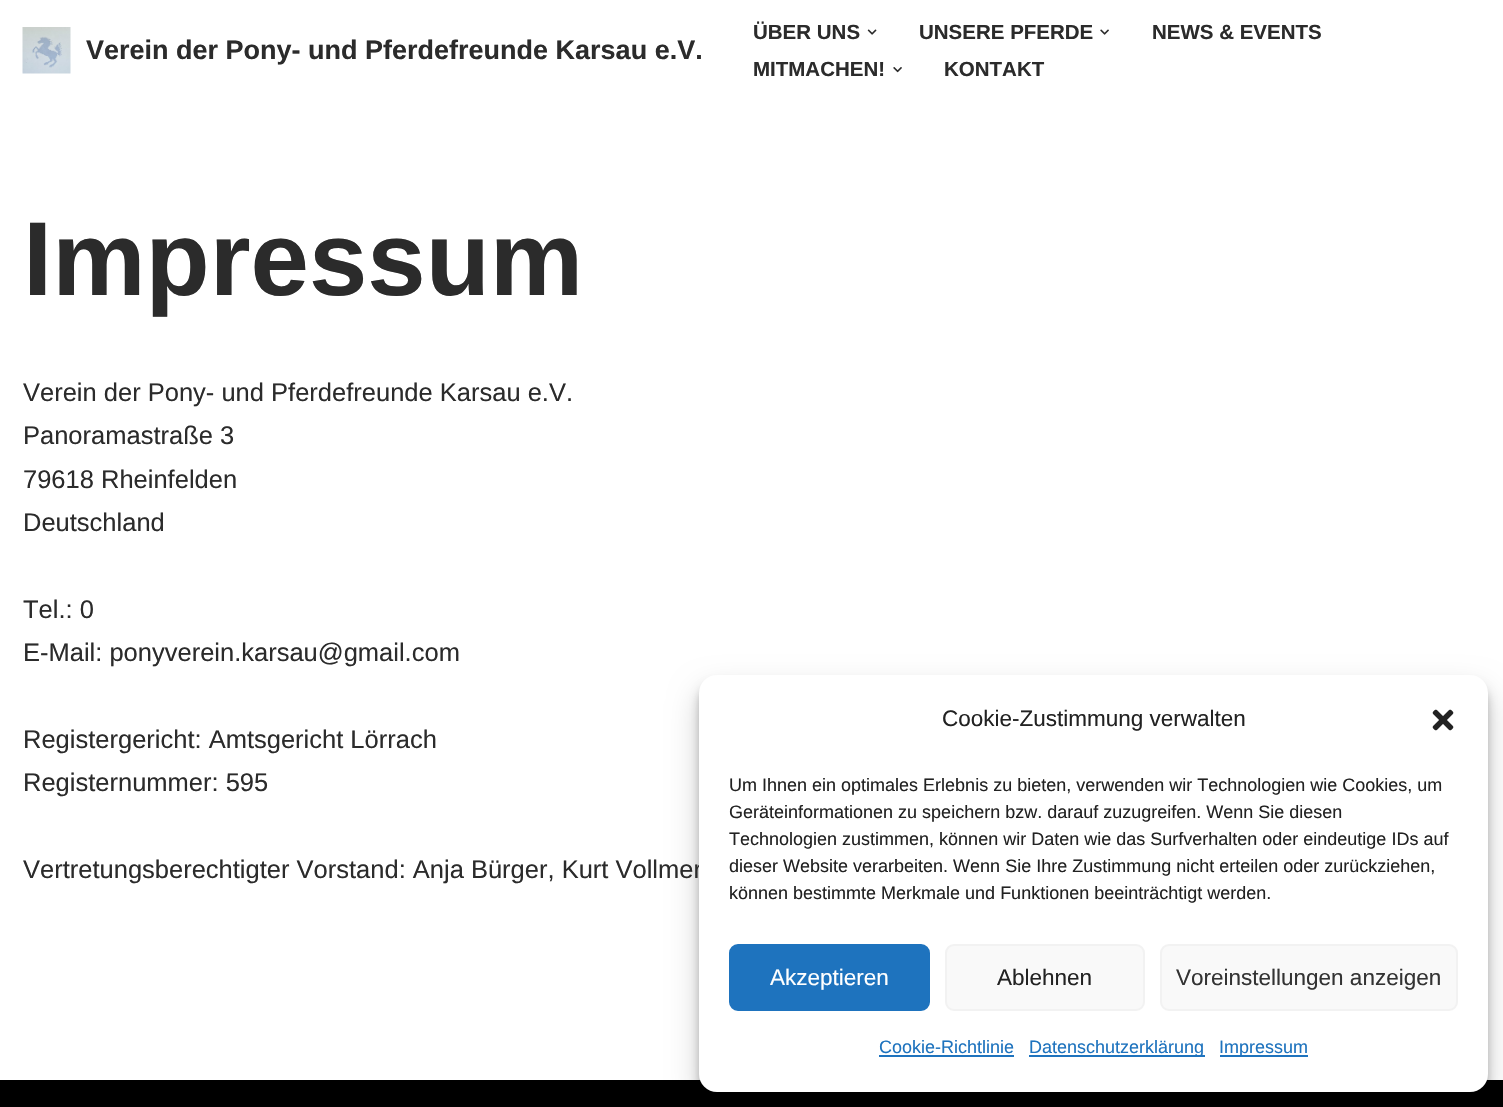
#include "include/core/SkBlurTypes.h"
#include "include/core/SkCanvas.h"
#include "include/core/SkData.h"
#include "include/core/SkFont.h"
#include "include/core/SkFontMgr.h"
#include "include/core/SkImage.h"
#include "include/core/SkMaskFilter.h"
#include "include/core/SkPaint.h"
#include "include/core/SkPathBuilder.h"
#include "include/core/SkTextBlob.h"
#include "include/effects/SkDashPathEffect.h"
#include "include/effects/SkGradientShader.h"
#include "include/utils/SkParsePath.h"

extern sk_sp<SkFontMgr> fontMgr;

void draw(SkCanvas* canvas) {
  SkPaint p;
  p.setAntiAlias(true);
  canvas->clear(SK_ColorWHITE);
  canvas->drawImageRect(SkImages::DeferredFromEncodedData(SkData::MakeFromFileName("images/1.png")), SkRect::MakeLTRB(22, 27, 71, 74), SkSamplingOptions());
  canvas->drawImageRect(SkImages::DeferredFromEncodedData(SkData::MakeFromFileName("images/2.png")), SkRect::MakeLTRB(867, 29, 877, 35), SkSamplingOptions());
  canvas->drawImageRect(SkImages::DeferredFromEncodedData(SkData::MakeFromFileName("images/3.png")), SkRect::MakeLTRB(1100, 29, 1109, 35), SkSamplingOptions());
  canvas->drawImageRect(SkImages::DeferredFromEncodedData(SkData::MakeFromFileName("images/4.png")), SkRect::MakeLTRB(893, 67, 902, 73), SkSamplingOptions());
  p.setColor(SK_ColorBLACK);
  canvas->drawRect(SkRect::MakeLTRB(0, 1080, 1503, 1107), p);
  p.setColor(SkColorSetARGB(59, 0, 0, 0));
  p.setMaskFilter(SkMaskFilter::MakeBlur(kNormal_SkBlurStyle, 4.5f));
  canvas->drawRoundRect(SkRect::MakeLTRB(699, 684, 1488, 1101), 18, 18, p);
  p.setMaskFilter(nullptr);
  p.setColor(SkColorSetARGB(48, 0, 0, 0));
  p.setMaskFilter(SkMaskFilter::MakeBlur(kNormal_SkBlurStyle, 15));
  canvas->drawRoundRect(SkRect::MakeLTRB(699, 690, 1488, 1107), 18, 18, p);
  p.setMaskFilter(nullptr);
  SkFont font1(fontMgr->matchFamilyStyle("Liberation Sans", SkFontStyle::Bold()), 27);
  font1.setSubpixel(true);
  p.setColor(SkColorSetRGB(43, 43, 43));
  canvas->drawString("Verein der Pony- und Pferdefreunde Karsau e.V.", 86, 59, font1, p);
  SkFont font2(fontMgr->matchFamilyStyle("Liberation Sans", SkFontStyle::Bold()), 20.5f);
  font2.setSubpixel(true);
  canvas->drawString("ÜBER UNS", 753, 39, font2, p);
  canvas->drawString("UNSERE PFERDE", 919, 39, font2, p);
  canvas->drawString("NEWS & EVENTS", 1152, 39, font2, p);
  canvas->drawString("MITMACHEN!", 753, 76, font2, p);
  canvas->drawString("KONTAKT", 944, 76, font2, p);
  SkFont font3(fontMgr->matchFamilyStyle("Liberation Sans", SkFontStyle::Bold()), 105);
  font3.setSubpixel(true);
  canvas->drawString("Impressum", 23, 295, font3, p);
  SkFont font4(fontMgr->matchFamilyStyle("Liberation Sans", SkFontStyle::Normal()), 25.5f);
  font4.setSubpixel(true);
  canvas->drawString("Verein der Pony- und Pferdefreunde Karsau e.V.", 23, 401, font4, p);
  canvas->drawString("Panoramastraße 3", 23, 444, font4, p);
  canvas->drawString("79618 Rheinfelden", 23, 488, font4, p);
  canvas->drawString("Deutschland", 23, 531, font4, p);
  canvas->drawString("Tel.: 0", 23, 618, font4, p);
  canvas->drawString("E-Mail: ponyverein.karsau@gmail.com", 23, 661, font4, p);
  canvas->drawString("Registergericht: Amtsgericht Lörrach", 23, 748, font4, p);
  canvas->drawString("Registernummer: 595", 23, 791, font4, p);
  canvas->drawString("Vertretungsberechtigter Vorstand: Anja Bürger, Kurt Vollmer", 23, 878, font4, p);
  p.setColor(SK_ColorWHITE);
  canvas->drawRoundRect(SkRect::MakeLTRB(699, 675, 1488, 1092), 18, 18, p);
  SkFont font5(fontMgr->matchFamilyStyle("Liberation Sans", SkFontStyle::Normal()), 22.5f);
  font5.setSubpixel(true);
  p.setColor(SkColorSetRGB(34, 34, 34));
  canvas->drawString("Cookie-Zustimmung verwalten", 942, 726, font5, p);
  canvas->drawImageRect(SkImages::DeferredFromEncodedData(SkData::MakeFromFileName("images/5.png")), SkRect::MakeLTRB(1432, 709, 1454, 731), SkSamplingOptions());
  SkFont font6(fontMgr->matchFamilyStyle("Liberation Sans", SkFontStyle::Normal()), 18);
  font6.setSubpixel(true);
  canvas->drawString("Um Ihnen ein optimales Erlebnis zu bieten, verwenden wir Technologien wie Cookies, um", 729, 791, font6, p);
  canvas->drawString("Geräteinformationen zu speichern bzw. darauf zuzugreifen. Wenn Sie diesen", 729, 818, font6, p);
  canvas->drawString("Technologien zustimmen, können wir Daten wie das Surfverhalten oder eindeutige IDs auf", 729, 845, font6, p);
  canvas->drawString("dieser Website verarbeiten. Wenn Sie Ihre Zustimmung nicht erteilen oder zurückziehen,", 729, 872, font6, p);
  canvas->drawString("können bestimmte Merkmale und Funktionen beeinträchtigt werden.", 729, 899, font6, p);
  p.setColor(SkColorSetRGB(30, 115, 190));
  canvas->drawRoundRect(SkRect::MakeLTRB(730, 945, 929, 1010), 8, 8, p);
  p.setStyle(SkPaint::kStroke_Style);
  p.setStrokeWidth(2);
  canvas->drawRoundRect(SkRect::MakeLTRB(730, 945, 929, 1010), 8, 8, p);
  p.setStyle(SkPaint::kFill_Style);
  p.setColor(SK_ColorWHITE);
  canvas->drawString("Akzeptieren", 770, 985, font5, p);
  p.setColor(SkColorSetRGB(249, 249, 249));
  canvas->drawRoundRect(SkRect::MakeLTRB(946, 945, 1144, 1010), 8, 8, p);
  p.setStyle(SkPaint::kStroke_Style);
  p.setColor(SkColorSetRGB(242, 242, 242));
  canvas->drawRoundRect(SkRect::MakeLTRB(946, 945, 1144, 1010), 8, 8, p);
  p.setStyle(SkPaint::kFill_Style);
  p.setColor(SkColorSetRGB(34, 34, 34));
  canvas->drawString("Ablehnen", 997, 985, font5, p);
  p.setColor(SkColorSetRGB(249, 249, 249));
  canvas->drawRoundRect(SkRect::MakeLTRB(1161, 945, 1457, 1010), 8, 8, p);
  p.setStyle(SkPaint::kStroke_Style);
  p.setColor(SkColorSetRGB(242, 242, 242));
  canvas->drawRoundRect(SkRect::MakeLTRB(1161, 945, 1457, 1010), 8, 8, p);
  p.setStyle(SkPaint::kFill_Style);
  p.setColor(SkColorSetRGB(51, 51, 51));
  canvas->drawString("Voreinstellungen anzeigen", 1176, 985, font5, p);
  p.setColor(SkColorSetRGB(30, 115, 190));
  canvas->drawString("Cookie-Richtlinie", 879, 1053, font6, p);
  canvas->drawRect(SkRect::MakeLTRB(879, 1055, 1014, 1057), p);
  canvas->drawRect(SkRect::MakeLTRB(1029, 1055, 1205, 1057), p);
  canvas->drawString("Datenschutzerklärung", 1029, 1053, font6, p);
  canvas->drawRect(SkRect::MakeLTRB(1220, 1055, 1308, 1057), p);
  canvas->drawString("Impressum", 1219, 1053, font6, p);
}
